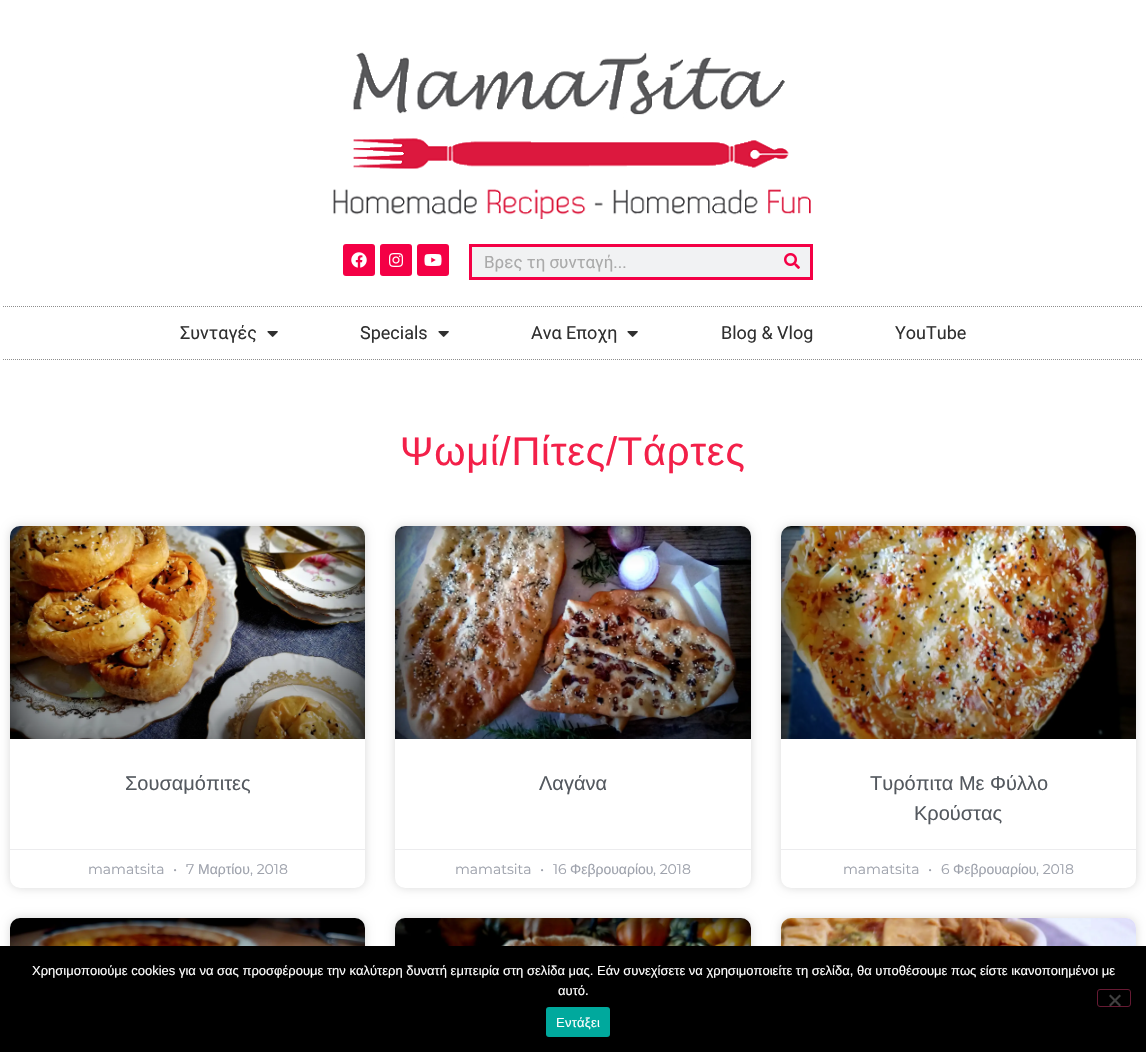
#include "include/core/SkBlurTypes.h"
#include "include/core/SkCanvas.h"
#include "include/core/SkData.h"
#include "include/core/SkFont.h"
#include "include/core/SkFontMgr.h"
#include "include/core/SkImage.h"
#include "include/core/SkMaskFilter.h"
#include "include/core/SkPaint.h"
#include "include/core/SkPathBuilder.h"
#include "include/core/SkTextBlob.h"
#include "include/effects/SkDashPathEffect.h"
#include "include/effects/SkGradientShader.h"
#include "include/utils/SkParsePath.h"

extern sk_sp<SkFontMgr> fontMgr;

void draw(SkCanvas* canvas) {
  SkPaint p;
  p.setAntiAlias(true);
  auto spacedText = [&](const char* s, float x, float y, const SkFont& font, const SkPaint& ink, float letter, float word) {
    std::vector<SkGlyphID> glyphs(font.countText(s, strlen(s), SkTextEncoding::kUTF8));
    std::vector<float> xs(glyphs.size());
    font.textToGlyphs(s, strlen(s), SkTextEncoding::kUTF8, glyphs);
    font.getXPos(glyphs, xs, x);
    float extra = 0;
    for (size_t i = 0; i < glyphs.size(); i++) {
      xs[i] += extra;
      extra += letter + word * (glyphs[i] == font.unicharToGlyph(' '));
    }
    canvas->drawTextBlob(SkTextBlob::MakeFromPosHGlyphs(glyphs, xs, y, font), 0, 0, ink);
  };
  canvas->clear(SK_ColorWHITE);
  canvas->drawImageRect(SkImages::DeferredFromEncodedData(SkData::MakeFromFileName("images/1.png")), SkRect::MakeLTRB(333, 52, 811, 219), SkSamplingOptions());
  p.setColor(SkColorSetRGB(244, 0, 69));
  canvas->drawRoundRect(SkRect::MakeLTRB(343, 244, 375, 276), 3, 3, p);
  canvas->drawImageRect(SkImages::DeferredFromEncodedData(SkData::MakeFromFileName("images/2.png")), SkRect::MakeLTRB(351, 252, 367, 268), SkSamplingOptions());
  canvas->drawRoundRect(SkRect::MakeLTRB(380, 244, 412, 276), 3, 3, p);
  canvas->drawImageRect(SkImages::DeferredFromEncodedData(SkData::MakeFromFileName("images/3.png")), SkRect::MakeLTRB(389, 253, 403, 267), SkSamplingOptions());
  canvas->drawRoundRect(SkRect::MakeLTRB(417, 244, 449, 276), 3, 3, p);
  canvas->drawImageRect(SkImages::DeferredFromEncodedData(SkData::MakeFromFileName("images/4.png")), SkRect::MakeLTRB(424, 254, 442, 266), SkSamplingOptions());
  p.setColor(SkColorSetRGB(241, 242, 243));
  canvas->drawRect(SkRect::MakeLTRB(470.5f, 245.5f, 811.5f, 278.5f), p);
  p.setStyle(SkPaint::kStroke_Style);
  p.setStrokeWidth(3);
  p.setColor(SkColorSetRGB(244, 0, 69));
  canvas->drawRect(SkRect::MakeLTRB(470.5f, 245.5f, 811.5f, 278.5f), p);
  canvas->drawImageRect(SkImages::DeferredFromEncodedData(SkData::MakeFromFileName("images/5.png")), SkRect::MakeLTRB(784, 253, 800, 269), SkSamplingOptions());
  p.setStrokeWidth(1);
  p.setColor(SkColorSetRGB(142, 142, 142));
  p.setPathEffect(SkDashPathEffect::Make({{1, 1}}, 0));
  canvas->drawPath(SkPathBuilder().moveTo(3, 306.5f).lineTo(1143, 306.5f).detach(), p);
  p.setPathEffect(nullptr);
  p.setPathEffect(SkDashPathEffect::Make({{1, 1}}, 0));
  canvas->drawPath(SkPathBuilder().moveTo(3, 359.5f).lineTo(1143, 359.5f).detach(), p);
  p.setPathEffect(nullptr);
  canvas->drawImageRect(SkImages::DeferredFromEncodedData(SkData::MakeFromFileName("images/6.png")), SkRect::MakeLTRB(267, 331, 278, 337), SkSamplingOptions());
  canvas->drawImageRect(SkImages::DeferredFromEncodedData(SkData::MakeFromFileName("images/6.png")), SkRect::MakeLTRB(438, 331, 449, 337), SkSamplingOptions());
  canvas->drawImageRect(SkImages::DeferredFromEncodedData(SkData::MakeFromFileName("images/6.png")), SkRect::MakeLTRB(627, 331, 638, 337), SkSamplingOptions());
  p.setStyle(SkPaint::kFill_Style);
  p.setColor(SkColorSetARGB(38, 0, 0, 0));
  p.setMaskFilter(SkMaskFilter::MakeBlur(kNormal_SkBlurStyle, 5));
  canvas->drawRoundRect(SkRect::MakeLTRB(10, 526, 365, 888), 10, 10, p);
  p.setMaskFilter(nullptr);
  p.setColor(SK_ColorWHITE);
  canvas->drawRoundRect(SkRect::MakeLTRB(10, 526, 365, 888), 10, 10, p);
  canvas->drawImageRect(SkImages::DeferredFromEncodedData(SkData::MakeFromFileName("images/7.png")), SkRect::MakeLTRB(10, 526, 365, 739), SkSamplingOptions());
  {
    const SkColor colors[] = {SkColorSetARGB(89, 0, 0, 0), SkColorSetARGB(0, 0, 0, 0)};
    const float stops[] = {0, 0.75f};
    const SkPoint ends[] = {{188, 739}, {188, 526}};
    p.setShader(SkGradientShader::MakeLinear(ends, colors, stops, 2, SkTileMode::kClamp));
    p.setAlpha(255);
  }
  canvas->drawRect(SkRect::MakeLTRB(10, 589, 365, 739), p);
  p.setShader(nullptr);
  p.setColor(SkColorSetRGB(236, 236, 238));
  canvas->drawRect(SkRect::MakeLTRB(10, 849, 365, 850), p);
  p.setColor(SkColorSetARGB(38, 0, 0, 0));
  p.setMaskFilter(SkMaskFilter::MakeBlur(kNormal_SkBlurStyle, 5));
  canvas->drawRoundRect(SkRect::MakeLTRB(395, 526, 751, 888), 10, 10, p);
  p.setMaskFilter(nullptr);
  p.setColor(SK_ColorWHITE);
  canvas->drawRoundRect(SkRect::MakeLTRB(395, 526, 751, 888), 10, 10, p);
  canvas->drawImageRect(SkImages::DeferredFromEncodedData(SkData::MakeFromFileName("images/8.png")), SkRect::MakeLTRB(395, 526, 751, 739), SkSamplingOptions());
  {
    const SkColor colors[] = {SkColorSetARGB(89, 0, 0, 0), SkColorSetARGB(0, 0, 0, 0)};
    const float stops[] = {0, 0.75f};
    const SkPoint ends[] = {{573, 739}, {573, 526}};
    p.setShader(SkGradientShader::MakeLinear(ends, colors, stops, 2, SkTileMode::kClamp));
    p.setAlpha(255);
  }
  canvas->drawRect(SkRect::MakeLTRB(395, 589, 751, 739), p);
  p.setShader(nullptr);
  p.setColor(SkColorSetRGB(236, 236, 238));
  canvas->drawRect(SkRect::MakeLTRB(395, 849, 751, 850), p);
  p.setColor(SkColorSetARGB(38, 0, 0, 0));
  p.setMaskFilter(SkMaskFilter::MakeBlur(kNormal_SkBlurStyle, 5));
  canvas->drawRoundRect(SkRect::MakeLTRB(781, 526, 1136, 888), 10, 10, p);
  p.setMaskFilter(nullptr);
  p.setColor(SK_ColorWHITE);
  canvas->drawRoundRect(SkRect::MakeLTRB(781, 526, 1136, 888), 10, 10, p);
  canvas->drawImageRect(SkImages::DeferredFromEncodedData(SkData::MakeFromFileName("images/9.png")), SkRect::MakeLTRB(781, 526, 1136, 739), SkSamplingOptions());
  {
    const SkColor colors[] = {SkColorSetARGB(89, 0, 0, 0), SkColorSetARGB(0, 0, 0, 0)};
    const float stops[] = {0, 0.75f};
    const SkPoint ends[] = {{959, 739}, {959, 526}};
    p.setShader(SkGradientShader::MakeLinear(ends, colors, stops, 2, SkTileMode::kClamp));
    p.setAlpha(255);
  }
  canvas->drawRect(SkRect::MakeLTRB(781, 589, 1136, 739), p);
  p.setShader(nullptr);
  p.setColor(SkColorSetRGB(236, 236, 238));
  canvas->drawRect(SkRect::MakeLTRB(781, 849, 1136, 850), p);
  p.setColor(SkColorSetARGB(38, 0, 0, 0));
  p.setMaskFilter(SkMaskFilter::MakeBlur(kNormal_SkBlurStyle, 5));
  canvas->drawRoundRect(SkRect::MakeLTRB(10, 918, 365, 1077), 10, 10, p);
  p.setMaskFilter(nullptr);
  p.setColor(SK_ColorWHITE);
  canvas->drawRoundRect(SkRect::MakeLTRB(10, 918, 365, 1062), 10, 10, p);
  canvas->drawImageRect(SkImages::DeferredFromEncodedData(SkData::MakeFromFileName("images/10.png")), SkRect::MakeLTRB(10, 918, 365, 946), SkSamplingOptions());
  p.setColor(SkColorSetARGB(38, 0, 0, 0));
  p.setMaskFilter(SkMaskFilter::MakeBlur(kNormal_SkBlurStyle, 5));
  canvas->drawRoundRect(SkRect::MakeLTRB(395, 918, 751, 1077), 10, 10, p);
  p.setMaskFilter(nullptr);
  p.setColor(SK_ColorWHITE);
  canvas->drawRoundRect(SkRect::MakeLTRB(395, 918, 751, 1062), 10, 10, p);
  canvas->drawImageRect(SkImages::DeferredFromEncodedData(SkData::MakeFromFileName("images/11.png")), SkRect::MakeLTRB(395, 918, 751, 946), SkSamplingOptions());
  p.setColor(SkColorSetARGB(38, 0, 0, 0));
  p.setMaskFilter(SkMaskFilter::MakeBlur(kNormal_SkBlurStyle, 5));
  canvas->drawRoundRect(SkRect::MakeLTRB(781, 918, 1136, 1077), 10, 10, p);
  p.setMaskFilter(nullptr);
  p.setColor(SK_ColorWHITE);
  canvas->drawRoundRect(SkRect::MakeLTRB(781, 918, 1136, 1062), 10, 10, p);
  canvas->drawImageRect(SkImages::DeferredFromEncodedData(SkData::MakeFromFileName("images/12.png")), SkRect::MakeLTRB(781, 918, 1136, 946), SkSamplingOptions());
  p.setColor(SK_ColorBLACK);
  canvas->drawRect(SkRect::MakeLTRB(0, 946, 1146, 1052), p);
  p.setStyle(SkPaint::kStroke_Style);
  p.setColor(SkColorSetRGB(102, 26, 51));
  canvas->drawRoundRect(SkRect::MakeLTRB(1097.5f, 989.5f, 1130.5f, 1006.5f), 2.5f, 2.5f, p);
  p.setStyle(SkPaint::kFill_Style);
  p.setColor(SkColorSetRGB(64, 64, 64));
  canvas->drawPath(SkPathBuilder().moveTo(1119.5f, 994.5f).lineTo(1121, 996).lineTo(1110.5f, 1006.5f).lineTo(1109, 1005).close().detach(), p);
  canvas->drawPath(SkPathBuilder().moveTo(1109, 996).lineTo(1110.5f, 994.5f).lineTo(1121, 1005).lineTo(1119.5f, 1006.5f).close().detach(), p);
  p.setColor(SkColorSetRGB(0, 169, 157));
  canvas->drawRoundRect(SkRect::MakeLTRB(546, 1007, 610, 1037), 3, 3, p);
  SkFont font1(fontMgr->matchFamilyStyle("Roboto", SkFontStyle::Normal()), 17);
  font1.setSubpixel(true);
  p.setColor(SkColorSetRGB(170, 170, 170));
  canvas->drawString("Βρες τη συνταγή...", 484, 268, font1, p);
  SkFont font2(fontMgr->matchFamilyStyle("Roboto", SkFontStyle::Normal()), 18);
  font2.setSubpixel(true);
  p.setColor(SkColorSetRGB(48, 48, 48));
  canvas->drawString("Συνταγές", 180, 339, font2, p);
  canvas->drawString("Specials", 360, 339, font2, p);
  canvas->drawString("Ανα Εποχη", 531, 339, font2, p);
  canvas->drawString("Blog & Vlog", 721, 339, font2, p);
  canvas->drawString("ΥouTube", 895, 339, font2, p);
  SkFont font3(fontMgr->matchFamilyStyle("Liberation Sans", SkFontStyle::Normal()), 40);
  font3.setSubpixel(true);
  p.setColor(SkColorSetRGB(243, 32, 73));
  spacedText("Ψωμί/Πίτες/Τάρτες", 400, 465, font3, p, 0.75f, 0);
  SkFont font4(fontMgr->matchFamilyStyle("Liberation Sans", SkFontStyle::Normal()), 20);
  font4.setSubpixel(true);
  p.setColor(SkColorSetRGB(84, 89, 95));
  canvas->drawString("Σουσαμόπιτες", 125, 790, font4, p);
  SkFont font5(fontMgr->matchFamilyStyle("Montserrat", SkFontStyle::Normal()), 14);
  font5.setSubpixel(true);
  p.setColor(SkColorSetRGB(158, 162, 172));
  canvas->drawString("mamatsita", 88, 874, font5, p);
  canvas->drawString("•", 173, 874, font5, p);
  canvas->drawString("7", 186, 874, font5, p);
  SkFont font6(fontMgr->matchFamilyStyle("Liberation Sans", SkFontStyle::Normal()), 14);
  font6.setSubpixel(true);
  canvas->drawString("Μαρτίου", 198, 874, font6, p);
  canvas->drawString(", 2018", 250, 874, font5, p);
  p.setColor(SkColorSetRGB(84, 89, 95));
  canvas->drawString("Λαγάνα", 539, 790, font4, p);
  p.setColor(SkColorSetRGB(158, 162, 172));
  canvas->drawString("mamatsita", 455, 874, font5, p);
  canvas->drawString("•", 540, 874, font5, p);
  canvas->drawString("16", 553, 874, font5, p);
  canvas->drawString("Φεβρουαρίου", 570, 874, font6, p);
  canvas->drawString(", 2018", 653, 874, font5, p);
  p.setColor(SkColorSetRGB(84, 89, 95));
  canvas->drawString("Τυρόπιτα Με Φύλλο", 870, 790, font4, p);
  canvas->drawString("Κρούστας", 914, 820, font4, p);
  p.setColor(SkColorSetRGB(158, 162, 172));
  canvas->drawString("mamatsita", 843, 874, font5, p);
  canvas->drawString("•", 928, 874, font5, p);
  canvas->drawString("6", 941, 874, font5, p);
  canvas->drawString("Φεβρουαρίου", 953, 874, font6, p);
  canvas->drawString(", 2018", 1036, 874, font5, p);
  SkFont font7(fontMgr->matchFamilyStyle("Liberation Sans", SkFontStyle::Normal()), 13);
  font7.setSubpixel(true);
  p.setColor(SK_ColorWHITE);
  canvas->drawString("Χρησιμοποιούμε cookies για να σας προσφέρουμε την καλύτερη δυνατή εμπειρία στη σελίδα μας. Εάν συνεχίσετε να χρησιμοποιείτε τη σελίδα, θα υποθέσουμε πως είστε ικανοποιημένοι με", 32, 975, font7, p);
  canvas->drawString("αυτό.", 558, 995, font7, p);
  spacedText("Εντάξει", 556, 1027, font7, p, 0.25f, 0);
}
